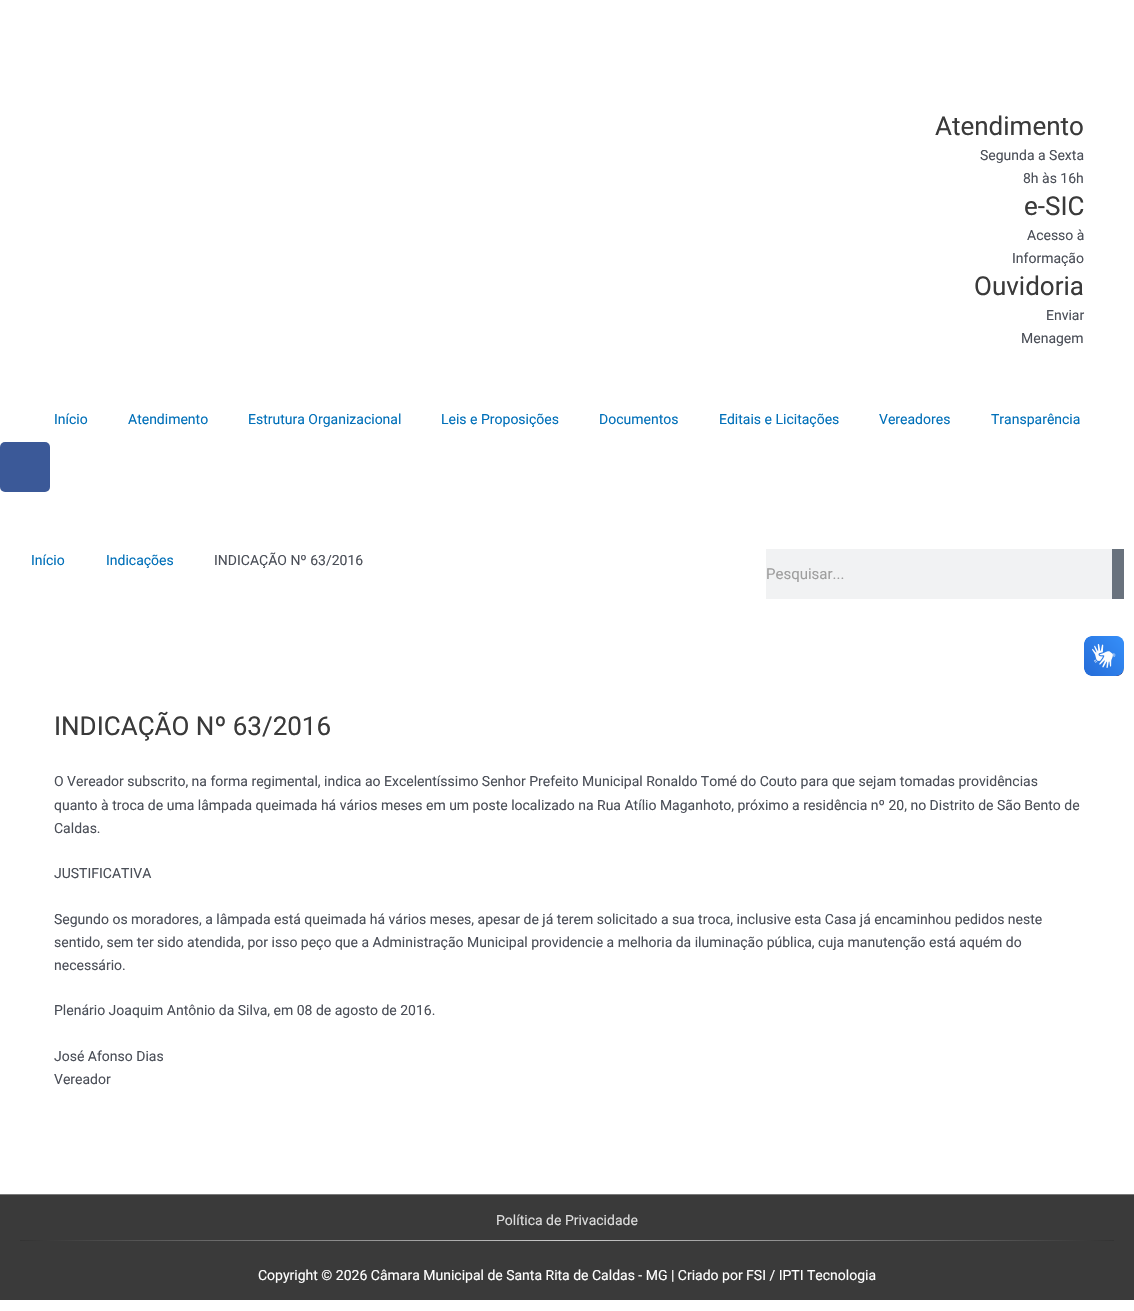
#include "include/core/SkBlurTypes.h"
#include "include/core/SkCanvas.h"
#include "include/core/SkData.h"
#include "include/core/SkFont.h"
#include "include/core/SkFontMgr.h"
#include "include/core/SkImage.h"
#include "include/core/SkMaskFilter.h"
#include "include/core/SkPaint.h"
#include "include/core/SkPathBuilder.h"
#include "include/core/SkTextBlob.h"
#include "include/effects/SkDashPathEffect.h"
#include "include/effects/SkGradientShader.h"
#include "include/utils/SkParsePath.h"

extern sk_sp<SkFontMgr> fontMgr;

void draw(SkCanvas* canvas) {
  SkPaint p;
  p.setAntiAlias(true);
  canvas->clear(SK_ColorWHITE);
  p.setColor(SkColorSetRGB(59, 89, 152));
  canvas->drawRoundRect(SkRect::MakeLTRB(0, 442, 50, 492), 5, 5, p);
  p.setColor(SkColorSetRGB(241, 242, 243));
  canvas->drawRect(SkRect::MakeLTRB(766, 549, 1112, 599), p);
  p.setColor(SkColorSetRGB(105, 114, 125));
  canvas->drawRect(SkRect::MakeLTRB(1112, 549, 1124, 599), p);
  p.setColor(SkColorSetRGB(122, 122, 122));
  canvas->drawRect(SkRect::MakeLTRB(0, 1194, 1134, 1195), p);
  p.setColor(SkColorSetRGB(58, 58, 58));
  canvas->drawRect(SkRect::MakeLTRB(0, 1195, 1134, 1300), p);
  {
    const SkColor colors[] = {SkColorSetRGB(51, 51, 51), SkColorSetRGB(204, 204, 204), SkColorSetRGB(51, 51, 51)};
    const float stops[] = {0, 0.5f, 1};
    const SkPoint ends[] = {{20, 1241}, {1114, 1241}};
    p.setShader(SkGradientShader::MakeLinear(ends, colors, stops, 3, SkTileMode::kClamp));
    p.setAlpha(255);
  }
  canvas->drawRect(SkRect::MakeLTRB(20, 1240, 1114, 1241), p);
  canvas->drawImageRect(SkImages::DeferredFromEncodedData(SkData::MakeFromFileName("images/1.png")), SkRect::MakeLTRB(1084, 636, 1124, 676), SkSamplingOptions());
  canvas->drawImageRect(SkImages::DeferredFromEncodedData(SkData::MakeFromFileName("images/2.png")), SkRect::MakeLTRB(1084, 636, 1124, 676), SkSamplingOptions());
  SkFont font1(fontMgr->matchFamilyStyle("Roboto", SkFontStyle::Normal()), 26);
  font1.setSubpixel(true);
  p.setShader(nullptr);
  p.setColor(SkColorSetRGB(58, 58, 58));
  canvas->drawString("Atendimento", 935, 135, font1, p);
  SkFont font2(fontMgr->matchFamilyStyle("Roboto", SkFontStyle::Normal()), 14);
  font2.setSubpixel(true);
  p.setColor(SkColorSetRGB(75, 79, 88));
  canvas->drawString("Segunda a Sexta", 980, 160, font2, p);
  canvas->drawString("8h às 16h", 1023, 183, font2, p);
  p.setColor(SkColorSetRGB(58, 58, 58));
  canvas->drawString("e-SIC", 1024, 215, font1, p);
  p.setColor(SkColorSetRGB(75, 79, 88));
  canvas->drawString("Acesso à", 1027, 240, font2, p);
  canvas->drawString("Informação", 1012, 263, font2, p);
  p.setColor(SkColorSetRGB(58, 58, 58));
  canvas->drawString("Ouvidoria", 974, 295, font1, p);
  p.setColor(SkColorSetRGB(75, 79, 88));
  canvas->drawString("Enviar", 1046, 320, font2, p);
  canvas->drawString("Menagem", 1021, 343, font2, p);
  p.setColor(SkColorSetRGB(1, 112, 185));
  canvas->drawString("Início", 54, 424, font2, p);
  canvas->drawString("Atendimento", 128, 424, font2, p);
  canvas->drawString("Estrutura Organizacional", 248, 424, font2, p);
  canvas->drawString("Leis e Proposições", 441, 424, font2, p);
  canvas->drawString("Documentos", 599, 424, font2, p);
  canvas->drawString("Editais e Licitações", 719, 424, font2, p);
  canvas->drawString("Vereadores", 879, 424, font2, p);
  canvas->drawString("Transparência", 991, 424, font2, p);
  canvas->drawString("Início", 31, 565, font2, p);
  canvas->drawString("Indicações", 106, 565, font2, p);
  p.setColor(SkColorSetRGB(75, 79, 88));
  canvas->drawString("INDICAÇÃO Nº 63/2016", 214, 565, font2, p);
  SkFont font3(fontMgr->matchFamilyStyle("Roboto", SkFontStyle::Normal()), 15);
  font3.setSubpixel(true);
  p.setColor(SkColorSetRGB(158, 158, 158));
  canvas->drawString("Pesquisar...", 766, 579, font3, p);
  p.setColor(SkColorSetRGB(58, 58, 58));
  canvas->drawString("INDICAÇÃO Nº 63/2016", 54, 735, font1, p);
  p.setColor(SkColorSetRGB(75, 79, 88));
  canvas->drawString("O Vereador subscrito, na forma regimental, indica ao Excelentíssimo Senhor Prefeito Municipal Ronaldo Tomé do Couto para que sejam tomadas providências", 54, 786, font2, p);
  canvas->drawString("quanto à troca de uma lâmpada queimada há vários meses em um poste localizado na Rua Atílio Maganhoto, próximo a residência nº 20, no Distrito de São Bento de", 54, 810, font2, p);
  canvas->drawString("Caldas.", 54, 833, font2, p);
  canvas->drawString("JUSTIFICATIVA", 54, 878, font2, p);
  canvas->drawString("Segundo os moradores, a lâmpada está queimada há vários meses, apesar de já terem solicitado a sua troca, inclusive esta Casa já encaminhou pedidos neste", 54, 924, font2, p);
  canvas->drawString("sentido, sem ter sido atendida, por isso peço que a Administração Municipal providencie a melhoria da iluminação pública, cuja manutenção está aquém do", 54, 947, font2, p);
  canvas->drawString("necessário.", 54, 970, font2, p);
  canvas->drawString("Plenário Joaquim Antônio da Silva, em 08 de agosto de 2016.", 54, 1015, font2, p);
  canvas->drawString("José Afonso Dias", 54, 1061, font2, p);
  canvas->drawString("Vereador", 54, 1084, font2, p);
  p.setColor(SkColorSetRGB(221, 221, 221));
  canvas->drawString("Política de Privacidade", 496, 1225, font2, p);
  p.setColor(SK_ColorWHITE);
  canvas->drawString("Copyright © 2026 Câmara Municipal de Santa Rita de Caldas - MG | Criado por FSI / IPTI Tecnologia", 258, 1280, font2, p);
}
